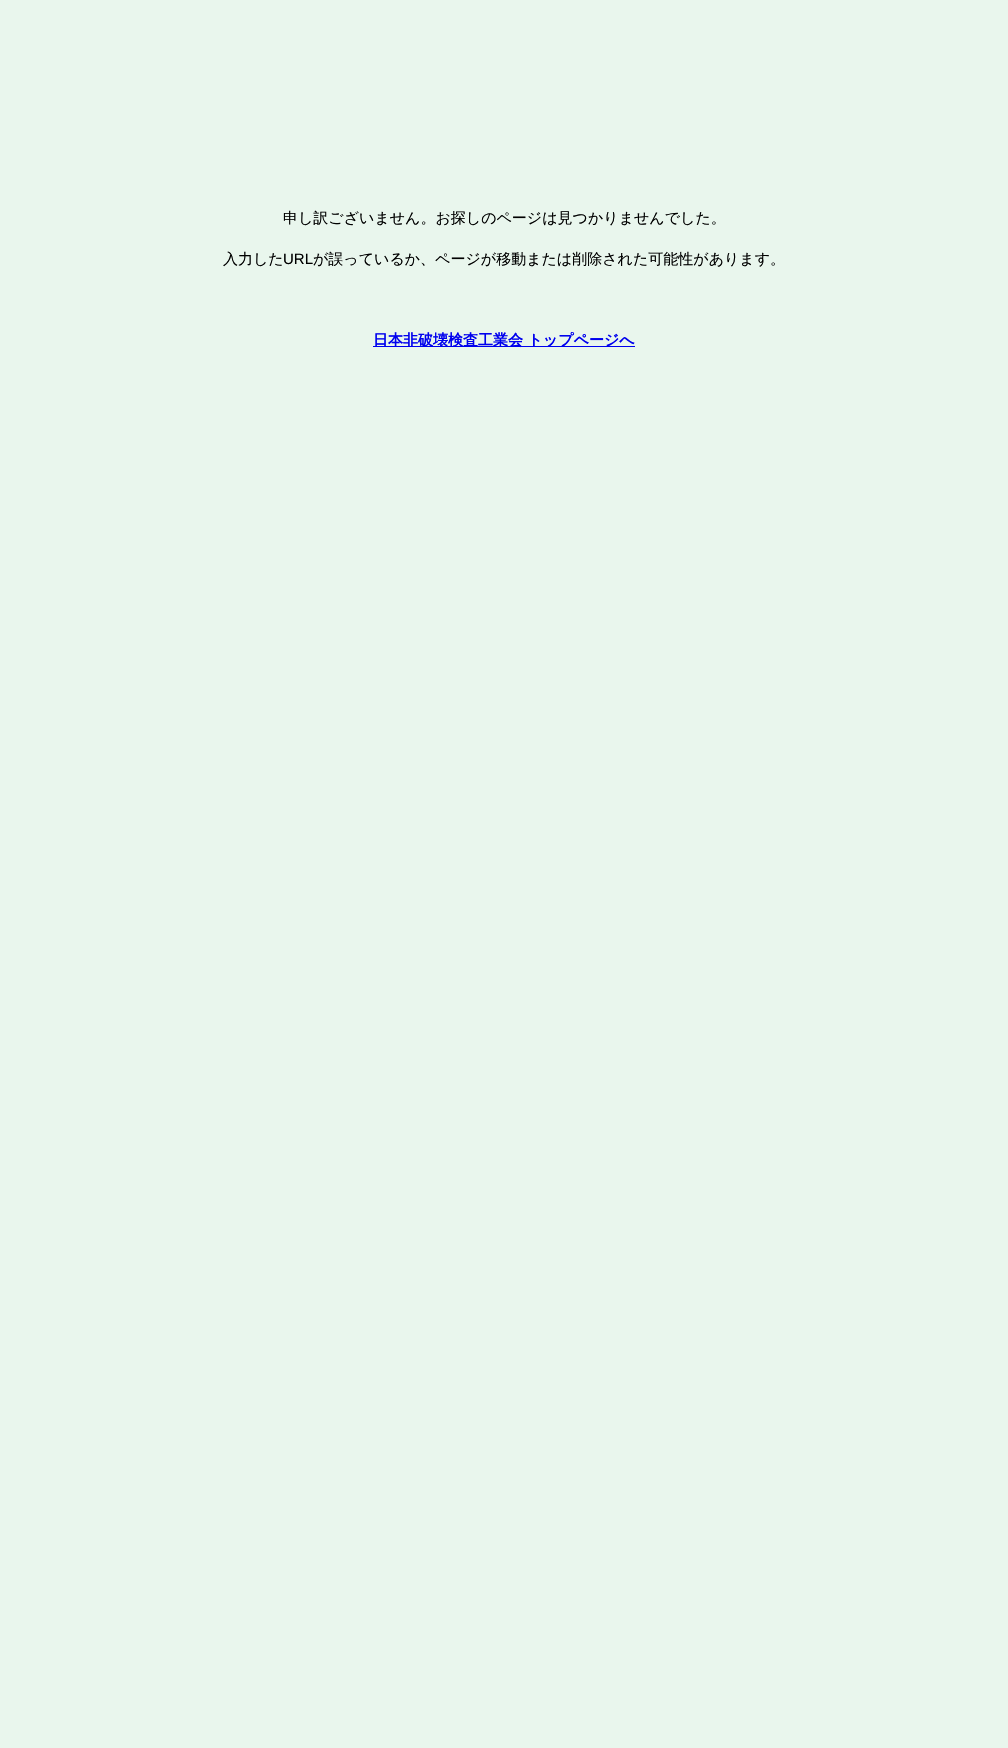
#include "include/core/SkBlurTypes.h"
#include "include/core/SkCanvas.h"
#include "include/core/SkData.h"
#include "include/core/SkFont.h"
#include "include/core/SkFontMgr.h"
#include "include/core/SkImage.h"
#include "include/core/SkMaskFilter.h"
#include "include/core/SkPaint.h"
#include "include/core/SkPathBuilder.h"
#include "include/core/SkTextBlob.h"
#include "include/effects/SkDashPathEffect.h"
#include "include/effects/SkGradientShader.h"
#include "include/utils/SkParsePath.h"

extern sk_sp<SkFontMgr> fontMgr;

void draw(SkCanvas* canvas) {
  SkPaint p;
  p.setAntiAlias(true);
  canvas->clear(SkColorSetRGB(233, 246, 237));
  p.setColor(SkColorSetRGB(0, 0, 238));
  canvas->drawRect(SkRect::MakeLTRB(373, 346, 635, 347), p);
  SkFont font1(fontMgr->matchFamilyStyle("WenQuanYi Zen Hei", SkFontStyle(500, SkFontStyle::kNormal_Width, SkFontStyle::kUpright_Slant)), 15);
  font1.setSubpixel(true);
  p.setColor(SK_ColorBLACK);
  canvas->drawString("申し訳ございません。お探しのページは見つかりませんでした。", 283, 223, font1, p);
  canvas->drawString("入力した", 223, 264, font1, p);
  SkFont font2(fontMgr->matchFamilyStyle("Liberation Sans", SkFontStyle::Normal()), 15);
  font2.setSubpixel(true);
  canvas->drawString("URL", 283, 264, font2, p);
  canvas->drawString("が誤っているか、ページが移動または削除された可能性があります。", 313, 264, font1, p);
  SkFont font3(fontMgr->matchFamilyStyle("WenQuanYi Zen Hei", SkFontStyle::Bold()), 15);
  font3.setSubpixel(true);
  p.setColor(SkColorSetRGB(0, 0, 238));
  canvas->drawString("日本非破壊検査工業会 トップページへ", 373, 345, font3, p);
}
